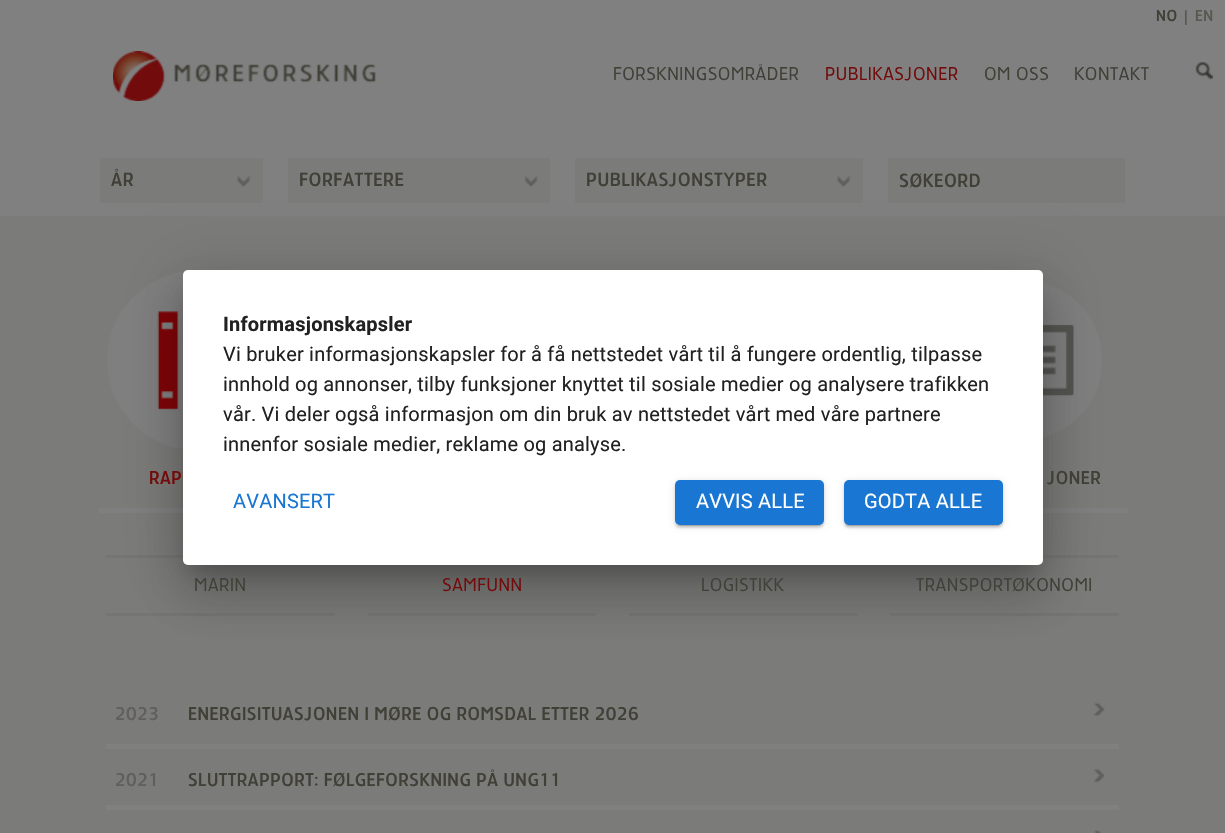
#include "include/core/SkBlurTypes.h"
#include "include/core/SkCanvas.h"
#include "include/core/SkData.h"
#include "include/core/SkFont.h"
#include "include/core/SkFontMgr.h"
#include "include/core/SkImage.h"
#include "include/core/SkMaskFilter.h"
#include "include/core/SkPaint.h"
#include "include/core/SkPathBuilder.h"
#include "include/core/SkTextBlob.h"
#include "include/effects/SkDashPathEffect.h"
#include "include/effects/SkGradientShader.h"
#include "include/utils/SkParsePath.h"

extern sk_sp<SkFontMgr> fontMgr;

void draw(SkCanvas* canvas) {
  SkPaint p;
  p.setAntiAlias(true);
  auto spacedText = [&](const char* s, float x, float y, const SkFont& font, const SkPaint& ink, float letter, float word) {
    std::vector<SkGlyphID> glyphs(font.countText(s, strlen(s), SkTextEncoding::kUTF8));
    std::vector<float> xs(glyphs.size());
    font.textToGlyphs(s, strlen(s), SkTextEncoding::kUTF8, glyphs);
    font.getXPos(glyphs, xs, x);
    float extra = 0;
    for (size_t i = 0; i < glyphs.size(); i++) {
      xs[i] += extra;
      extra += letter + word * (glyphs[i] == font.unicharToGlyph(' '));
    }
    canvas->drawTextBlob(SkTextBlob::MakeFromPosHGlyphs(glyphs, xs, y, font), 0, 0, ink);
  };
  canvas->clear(SkColorSetRGB(128, 128, 128));
  canvas->drawImageRect(SkImages::DeferredFromEncodedData(SkData::MakeFromFileName("images/1.png")), SkRect::MakeLTRB(113, 51, 376, 101), SkSamplingOptions());
  canvas->drawImageRect(SkImages::DeferredFromEncodedData(SkData::MakeFromFileName("images/2.png")), SkRect::MakeLTRB(1195, 62, 1213, 80), SkSamplingOptions());
  p.setColor(SkColorSetRGB(123, 123, 122));
  canvas->drawRect(SkRect::MakeLTRB(0, 216, 1225, 833), p);
  canvas->drawRect(SkRect::MakeLTRB(100, 158, 263, 203), p);
  canvas->drawImageRect(SkImages::DeferredFromEncodedData(SkData::MakeFromFileName("images/3.png")), SkRect::MakeLTRB(237, 176, 251, 187), SkSamplingOptions());
  canvas->drawRect(SkRect::MakeLTRB(288, 158, 550, 203), p);
  canvas->drawImageRect(SkImages::DeferredFromEncodedData(SkData::MakeFromFileName("images/4.png")), SkRect::MakeLTRB(525, 176, 538, 187), SkSamplingOptions());
  canvas->drawRect(SkRect::MakeLTRB(575, 158, 863, 203), p);
  canvas->drawImageRect(SkImages::DeferredFromEncodedData(SkData::MakeFromFileName("images/3.png")), SkRect::MakeLTRB(837, 176, 851, 187), SkSamplingOptions());
  canvas->drawRect(SkRect::MakeLTRB(888, 158, 1125, 203), p);
  p.setColor(SkColorSetRGB(128, 128, 128));
  canvas->drawRect(SkRect::MakeLTRB(99, 508, 183, 513), p);
  canvas->drawImageRect(SkImages::DeferredFromEncodedData(SkData::MakeFromFileName("images/5.png")), SkRect::MakeLTRB(107, 271, 185, 450), SkSamplingOptions());
  canvas->drawRect(SkRect::MakeLTRB(1043, 508, 1128, 513), p);
  canvas->drawImageRect(SkImages::DeferredFromEncodedData(SkData::MakeFromFileName("images/6.png")), SkRect::MakeLTRB(1043, 282, 1102, 439), SkSamplingOptions());
  p.setColor(SkColorSetRGB(117, 117, 116));
  canvas->drawRect(SkRect::MakeLTRB(106, 555, 183, 558), p);
  canvas->drawRect(SkRect::MakeLTRB(106, 613, 335, 616), p);
  canvas->drawRect(SkRect::MakeLTRB(368, 613, 596, 616), p);
  canvas->drawRect(SkRect::MakeLTRB(629, 613, 858, 616), p);
  canvas->drawRect(SkRect::MakeLTRB(1043, 555, 1119, 558), p);
  canvas->drawRect(SkRect::MakeLTRB(890, 613, 1119, 616), p);
  canvas->drawImageRect(SkImages::DeferredFromEncodedData(SkData::MakeFromFileName("images/7.png")), SkRect::MakeLTRB(1093, 702, 1105, 717), SkSamplingOptions());
  canvas->drawImageRect(SkImages::DeferredFromEncodedData(SkData::MakeFromFileName("images/8.png")), SkRect::MakeLTRB(1093, 768, 1105, 783), SkSamplingOptions());
  p.setColor(SkColorSetRGB(128, 128, 128));
  canvas->drawRect(SkRect::MakeLTRB(106, 744, 1119, 749), p);
  canvas->drawImageRect(SkImages::DeferredFromEncodedData(SkData::MakeFromFileName("images/9.png")), SkRect::MakeLTRB(1094, 830, 1102, 833), SkSamplingOptions());
  canvas->drawRect(SkRect::MakeLTRB(106, 805, 1119, 810), p);
  p.setColor(SkColorSetARGB(31, 0, 0, 0));
  p.setMaskFilter(SkMaskFilter::MakeBlur(kNormal_SkBlurStyle, 29));
  canvas->drawRoundRect(SkRect::MakeLTRB(173, 271, 1053, 586), 15, 15, p);
  p.setMaskFilter(nullptr);
  p.setColor(SkColorSetARGB(36, 0, 0, 0));
  p.setMaskFilter(SkMaskFilter::MakeBlur(kNormal_SkBlurStyle, 24));
  canvas->drawRoundRect(SkRect::MakeLTRB(179, 296, 1046, 599), 9, 9, p);
  p.setMaskFilter(nullptr);
  p.setColor(SkColorSetARGB(51, 0, 0, 0));
  p.setMaskFilter(SkMaskFilter::MakeBlur(kNormal_SkBlurStyle, 9.5f));
  canvas->drawRect(SkRect::MakeLTRB(191, 293, 1034, 570), p);
  p.setMaskFilter(nullptr);
  p.setColor(SK_ColorWHITE);
  canvas->drawRoundRect(SkRect::MakeLTRB(183, 270, 1043, 565), 5, 5, p);
  p.setColor(SkColorSetARGB(31, 0, 0, 0));
  p.setMaskFilter(SkMaskFilter::MakeBlur(kNormal_SkBlurStyle, 3));
  canvas->drawRoundRect(SkRect::MakeLTRB(675, 481, 824, 526), 5, 5, p);
  p.setMaskFilter(nullptr);
  p.setColor(SkColorSetARGB(36, 0, 0, 0));
  p.setMaskFilter(SkMaskFilter::MakeBlur(kNormal_SkBlurStyle, 1));
  canvas->drawRoundRect(SkRect::MakeLTRB(675, 483, 824, 528), 5, 5, p);
  p.setMaskFilter(nullptr);
  p.setColor(SkColorSetARGB(51, 0, 0, 0));
  p.setMaskFilter(SkMaskFilter::MakeBlur(kNormal_SkBlurStyle, 0.5f));
  canvas->drawRoundRect(SkRect::MakeLTRB(678, 486, 821, 526), 2.5f, 2.5f, p);
  p.setMaskFilter(nullptr);
  p.setColor(SkColorSetRGB(25, 118, 210));
  canvas->drawRoundRect(SkRect::MakeLTRB(675, 480, 824, 525), 5, 5, p);
  p.setColor(SkColorSetARGB(31, 0, 0, 0));
  p.setMaskFilter(SkMaskFilter::MakeBlur(kNormal_SkBlurStyle, 3));
  canvas->drawRoundRect(SkRect::MakeLTRB(844, 481, 1003, 526), 5, 5, p);
  p.setMaskFilter(nullptr);
  p.setColor(SkColorSetARGB(36, 0, 0, 0));
  p.setMaskFilter(SkMaskFilter::MakeBlur(kNormal_SkBlurStyle, 1));
  canvas->drawRoundRect(SkRect::MakeLTRB(844, 483, 1003, 528), 5, 5, p);
  p.setMaskFilter(nullptr);
  p.setColor(SkColorSetARGB(51, 0, 0, 0));
  p.setMaskFilter(SkMaskFilter::MakeBlur(kNormal_SkBlurStyle, 0.5f));
  canvas->drawRoundRect(SkRect::MakeLTRB(846, 486, 1000, 526), 2.5f, 2.5f, p);
  p.setMaskFilter(nullptr);
  p.setColor(SkColorSetRGB(25, 118, 210));
  canvas->drawRoundRect(SkRect::MakeLTRB(844, 480, 1003, 525), 5, 5, p);
  SkFont font1(fontMgr->matchFamilyStyle("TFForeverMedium", SkFontStyle(500, SkFontStyle::kNormal_Width, SkFontStyle::kUpright_Slant)), 15);
  font1.setSubpixel(true);
  p.setColor(SkColorSetRGB(64, 64, 55));
  spacedText("NO", 1156, 21, font1, p, 0.6f, 0);
  SkFont font2(fontMgr->matchFamilyStyle("TFForeverMedium", SkFontStyle(500, SkFontStyle::kNormal_Width, SkFontStyle::kUpright_Slant)), 17.5f);
  font2.setSubpixel(true);
  spacedText("|", 1184, 24, font2, p, 0.6f, 0);
  p.setColor(SkColorSetRGB(88, 88, 80));
  spacedText("EN", 1195, 21, font1, p, 0.6f, 0);
  SkFont font3(fontMgr->matchFamilyStyle("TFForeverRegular", SkFontStyle::Normal()), 17.5f);
  font3.setSubpixel(true);
  p.setColor(SkColorSetRGB(64, 64, 55));
  spacedText("FORSKNINGSOMRÅDER", 613, 80, font3, p, 0.6f, 0);
  p.setColor(SkColorSetRGB(114, 12, 12));
  spacedText("PUBLIKASJONER", 825, 80, font3, p, 0.6f, 0);
  p.setColor(SkColorSetRGB(64, 64, 55));
  spacedText("OM OSS", 984, 80, font3, p, 0.6f, 0);
  spacedText("KONTAKT", 1074, 80, font3, p, 0.6f, 0);
  SkFont font4(fontMgr->matchFamilyStyle("TFForeverMedium", SkFontStyle(500, SkFontStyle::kNormal_Width, SkFontStyle::kUpright_Slant)), 18.1f);
  font4.setSubpixel(true);
  spacedText("ÅR", 111, 186, font4, p, 0.6f, 0);
  spacedText("FORFATTERE", 299, 186, font4, p, 0.6f, 0);
  spacedText("PUBLIKASJONSTYPER", 586, 186, font4, p, 0.6f, 0);
  spacedText("SØKEORD", 899, 187, font4, p, 0.6f, 0);
  p.setColor(SkColorSetRGB(114, 12, 12));
  spacedText("RAP", 149, 484, font2, p, 0.6f, 0);
  p.setColor(SkColorSetRGB(64, 64, 55));
  spacedText("JONER", 1047, 484, font2, p, 0.6f, 0);
  spacedText("MARIN", 194, 591, font3, p, 0.6f, 0);
  p.setColor(SkColorSetRGB(114, 12, 12));
  spacedText("SAMFUNN", 442, 591, font3, p, 0.6f, 0);
  p.setColor(SkColorSetRGB(64, 64, 55));
  spacedText("LOGISTIKK", 701, 591, font3, p, 0.6f, 0);
  spacedText("TRANSPORTØKONOMI", 916, 591, font3, p, 0.6f, 0);
  p.setColor(SkColorSetRGB(96, 95, 93));
  spacedText("2023", 115, 720, font2, p, 0.6f, 0);
  p.setColor(SkColorSetRGB(64, 64, 55));
  spacedText("ENERGISITUASJONEN I MØRE OG ROMSDAL ETTER 2026", 188, 720, font2, p, 0.6f, 0);
  p.setColor(SkColorSetRGB(96, 95, 93));
  spacedText("2021", 115, 786, font2, p, 0.6f, 0);
  p.setColor(SkColorSetRGB(64, 64, 55));
  spacedText("SLUTTRAPPORT: FØLGEFORSKNING PÅ UNG11", 188, 786, font2, p, 0.6f, 0);
  SkFont font5(fontMgr->matchFamilyStyle("Roboto", SkFontStyle::Bold()), 20);
  font5.setSubpixel(true);
  p.setColor(SkColorSetRGB(33, 33, 33));
  spacedText("Informasjonskapsler", 223, 331, font5, p, 0.2f, 0);
  SkFont font6(fontMgr->matchFamilyStyle("Roboto", SkFontStyle::Normal()), 20);
  font6.setSubpixel(true);
  spacedText("Vi bruker informasjonskapsler for å få nettstedet vårt til å fungere ordentlig, tilpasse", 223, 361, font6, p, 0.2f, 0);
  spacedText("innhold og annonser, tilby funksjoner knyttet til sosiale medier og analysere trafikken", 223, 391, font6, p, 0.2f, 0);
  spacedText("vår. Vi deler også informasjon om din bruk av nettstedet vårt med våre partnere", 223, 421, font6, p, 0.2f, 0);
  spacedText("innenfor sosiale medier, reklame og analyse.", 223, 451, font6, p, 0.2f, 0);
  p.setColor(SkColorSetRGB(25, 118, 210));
  spacedText("AVANSERT", 233, 508, font6, p, 0.2f, 0);
  p.setColor(SK_ColorWHITE);
  spacedText("AVVIS ALLE", 696, 508, font6, p, 0.2f, 0);
  spacedText("GODTA ALLE", 864, 508, font6, p, 0.2f, 0);
}
